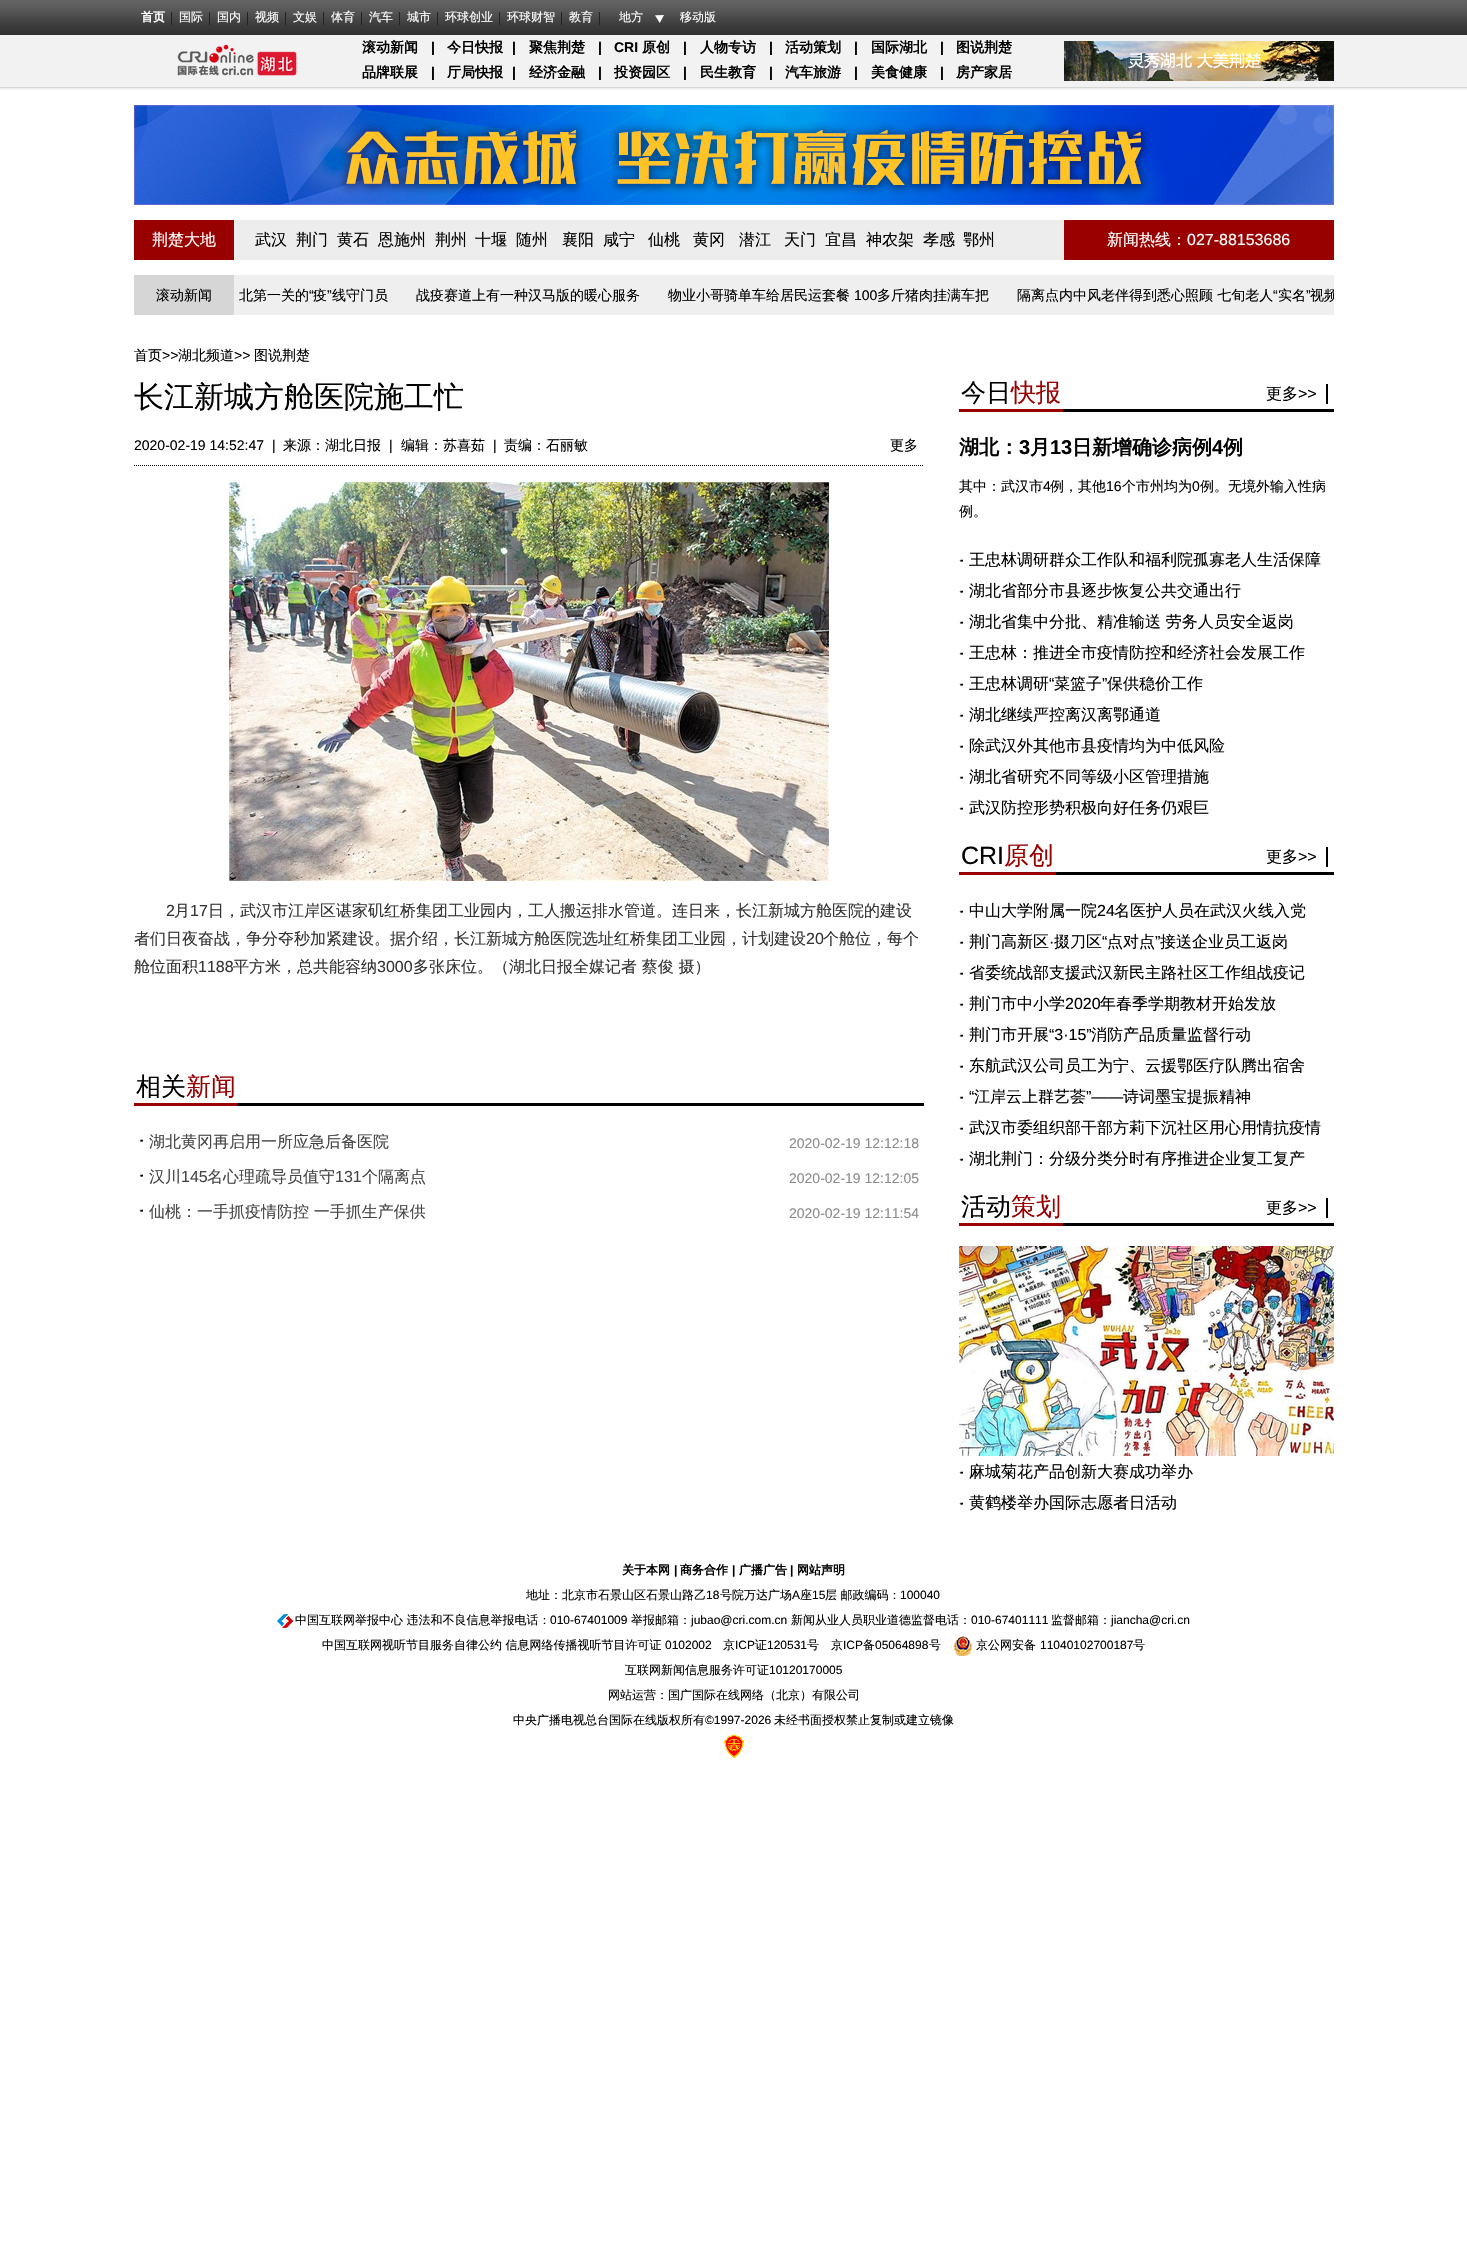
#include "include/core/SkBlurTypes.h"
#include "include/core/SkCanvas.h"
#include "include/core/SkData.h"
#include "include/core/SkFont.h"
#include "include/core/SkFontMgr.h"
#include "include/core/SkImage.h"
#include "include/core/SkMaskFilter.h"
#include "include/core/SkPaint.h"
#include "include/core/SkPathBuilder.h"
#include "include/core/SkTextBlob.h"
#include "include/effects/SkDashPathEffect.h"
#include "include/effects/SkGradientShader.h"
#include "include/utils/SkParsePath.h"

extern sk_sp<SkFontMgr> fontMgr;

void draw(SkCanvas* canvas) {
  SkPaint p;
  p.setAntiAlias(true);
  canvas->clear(SK_ColorWHITE);
  canvas->drawImageRect(SkImages::DeferredFromEncodedData(SkData::MakeFromFileName("images/1.png")), SkRect::MakeLTRB(0, 0, 1467, 35), SkSamplingOptions());
  p.setColor(SkColorSetRGB(37, 34, 34));
  canvas->drawRect(SkRect::MakeLTRB(171, 12, 172, 25), p);
  canvas->drawRect(SkRect::MakeLTRB(209, 12, 210, 25), p);
  canvas->drawRect(SkRect::MakeLTRB(247, 12, 248, 25), p);
  canvas->drawRect(SkRect::MakeLTRB(285, 12, 286, 25), p);
  canvas->drawRect(SkRect::MakeLTRB(323, 12, 324, 25), p);
  canvas->drawRect(SkRect::MakeLTRB(361, 12, 362, 25), p);
  canvas->drawRect(SkRect::MakeLTRB(399, 12, 400, 25), p);
  canvas->drawRect(SkRect::MakeLTRB(437, 12, 438, 25), p);
  canvas->drawRect(SkRect::MakeLTRB(499, 12, 500, 25), p);
  canvas->drawRect(SkRect::MakeLTRB(561, 12, 562, 25), p);
  canvas->drawRect(SkRect::MakeLTRB(599, 12, 600, 25), p);
  canvas->drawImageRect(SkImages::DeferredFromEncodedData(SkData::MakeFromFileName("images/2.png")), SkRect::MakeLTRB(655, 15, 664, 23), SkSamplingOptions());
  canvas->drawImageRect(SkImages::DeferredFromEncodedData(SkData::MakeFromFileName("images/3.png")), SkRect::MakeLTRB(0, 35, 1467, 90), SkSamplingOptions());
  canvas->drawImageRect(SkImages::DeferredFromEncodedData(SkData::MakeFromFileName("images/4.png")), SkRect::MakeLTRB(177, 44, 297, 76), SkSamplingOptions());
  canvas->drawImageRect(SkImages::DeferredFromEncodedData(SkData::MakeFromFileName("images/5.png")), SkRect::MakeLTRB(1064, 41, 1334, 81), SkSamplingOptions());
  canvas->drawImageRect(SkImages::DeferredFromEncodedData(SkData::MakeFromFileName("images/6.png")), SkRect::MakeLTRB(134, 105, 1334, 205), SkSamplingOptions());
  p.setColor(SkColorSetRGB(153, 0, 0));
  canvas->drawRect(SkRect::MakeLTRB(134, 220, 234, 260), p);
  p.setColor(SkColorSetRGB(237, 237, 237));
  canvas->drawRect(SkRect::MakeLTRB(234, 220, 1064, 260), p);
  p.setColor(SkColorSetRGB(153, 0, 0));
  canvas->drawRect(SkRect::MakeLTRB(1064, 220, 1334, 260), p);
  p.setColor(SkColorSetRGB(239, 239, 239));
  canvas->drawRect(SkRect::MakeLTRB(234, 275, 1334, 315), p);
  p.setColor(SkColorSetRGB(214, 214, 214));
  canvas->drawRect(SkRect::MakeLTRB(134, 275, 234, 315), p);
  p.setStyle(SkPaint::kStroke_Style);
  p.setStrokeWidth(1);
  p.setColor(SK_ColorBLACK);
  p.setPathEffect(SkDashPathEffect::Make({{1, 1}}, 0));
  canvas->drawPath(SkPathBuilder().moveTo(134, 465.5f).lineTo(924, 465.5f).detach(), p);
  p.setPathEffect(nullptr);
  canvas->drawImageRect(SkImages::DeferredFromEncodedData(SkData::MakeFromFileName("images/7.png")), SkRect::MakeLTRB(229, 482, 829, 881), SkSamplingOptions());
  p.setStyle(SkPaint::kFill_Style);
  canvas->drawRect(SkRect::MakeLTRB(238, 1103, 924, 1106), p);
  p.setColor(SkColorSetRGB(153, 0, 0));
  canvas->drawRect(SkRect::MakeLTRB(134, 1103, 238, 1106), p);
  canvas->drawImageRect(SkImages::DeferredFromEncodedData(SkData::MakeFromFileName("images/8.png")), SkRect::MakeLTRB(139, 1139, 143, 1142), SkSamplingOptions());
  canvas->drawImageRect(SkImages::DeferredFromEncodedData(SkData::MakeFromFileName("images/8.png")), SkRect::MakeLTRB(139, 1174, 143, 1177), SkSamplingOptions());
  canvas->drawImageRect(SkImages::DeferredFromEncodedData(SkData::MakeFromFileName("images/8.png")), SkRect::MakeLTRB(139, 1209, 143, 1212), SkSamplingOptions());
  p.setColor(SK_ColorBLACK);
  canvas->drawRect(SkRect::MakeLTRB(1063, 409, 1334, 412), p);
  p.setColor(SkColorSetRGB(153, 0, 0));
  canvas->drawRect(SkRect::MakeLTRB(959, 409, 1063, 412), p);
  p.setColor(SK_ColorBLACK);
  canvas->drawRect(SkRect::MakeLTRB(1326, 384, 1328, 404), p);
  canvas->drawImageRect(SkImages::DeferredFromEncodedData(SkData::MakeFromFileName("images/8.png")), SkRect::MakeLTRB(959, 559, 963, 562), SkSamplingOptions());
  canvas->drawImageRect(SkImages::DeferredFromEncodedData(SkData::MakeFromFileName("images/8.png")), SkRect::MakeLTRB(959, 590, 963, 593), SkSamplingOptions());
  canvas->drawImageRect(SkImages::DeferredFromEncodedData(SkData::MakeFromFileName("images/8.png")), SkRect::MakeLTRB(959, 621, 963, 624), SkSamplingOptions());
  canvas->drawImageRect(SkImages::DeferredFromEncodedData(SkData::MakeFromFileName("images/8.png")), SkRect::MakeLTRB(959, 652, 963, 655), SkSamplingOptions());
  canvas->drawImageRect(SkImages::DeferredFromEncodedData(SkData::MakeFromFileName("images/8.png")), SkRect::MakeLTRB(959, 683, 963, 686), SkSamplingOptions());
  canvas->drawImageRect(SkImages::DeferredFromEncodedData(SkData::MakeFromFileName("images/8.png")), SkRect::MakeLTRB(959, 714, 963, 717), SkSamplingOptions());
  canvas->drawImageRect(SkImages::DeferredFromEncodedData(SkData::MakeFromFileName("images/8.png")), SkRect::MakeLTRB(959, 745, 963, 748), SkSamplingOptions());
  canvas->drawImageRect(SkImages::DeferredFromEncodedData(SkData::MakeFromFileName("images/8.png")), SkRect::MakeLTRB(959, 776, 963, 779), SkSamplingOptions());
  canvas->drawImageRect(SkImages::DeferredFromEncodedData(SkData::MakeFromFileName("images/8.png")), SkRect::MakeLTRB(959, 807, 963, 810), SkSamplingOptions());
  canvas->drawRect(SkRect::MakeLTRB(1056, 872, 1334, 875), p);
  p.setColor(SkColorSetRGB(153, 0, 0));
  canvas->drawRect(SkRect::MakeLTRB(959, 872, 1056, 875), p);
  p.setColor(SK_ColorBLACK);
  canvas->drawRect(SkRect::MakeLTRB(1326, 847, 1328, 867), p);
  canvas->drawImageRect(SkImages::DeferredFromEncodedData(SkData::MakeFromFileName("images/8.png")), SkRect::MakeLTRB(959, 910, 963, 913), SkSamplingOptions());
  canvas->drawImageRect(SkImages::DeferredFromEncodedData(SkData::MakeFromFileName("images/8.png")), SkRect::MakeLTRB(959, 941, 963, 944), SkSamplingOptions());
  canvas->drawImageRect(SkImages::DeferredFromEncodedData(SkData::MakeFromFileName("images/8.png")), SkRect::MakeLTRB(959, 972, 963, 975), SkSamplingOptions());
  canvas->drawImageRect(SkImages::DeferredFromEncodedData(SkData::MakeFromFileName("images/8.png")), SkRect::MakeLTRB(959, 1003, 963, 1006), SkSamplingOptions());
  canvas->drawImageRect(SkImages::DeferredFromEncodedData(SkData::MakeFromFileName("images/8.png")), SkRect::MakeLTRB(959, 1034, 963, 1037), SkSamplingOptions());
  canvas->drawImageRect(SkImages::DeferredFromEncodedData(SkData::MakeFromFileName("images/8.png")), SkRect::MakeLTRB(959, 1065, 963, 1068), SkSamplingOptions());
  canvas->drawImageRect(SkImages::DeferredFromEncodedData(SkData::MakeFromFileName("images/8.png")), SkRect::MakeLTRB(959, 1096, 963, 1099), SkSamplingOptions());
  canvas->drawImageRect(SkImages::DeferredFromEncodedData(SkData::MakeFromFileName("images/8.png")), SkRect::MakeLTRB(959, 1127, 963, 1130), SkSamplingOptions());
  canvas->drawImageRect(SkImages::DeferredFromEncodedData(SkData::MakeFromFileName("images/8.png")), SkRect::MakeLTRB(959, 1158, 963, 1161), SkSamplingOptions());
  canvas->drawRect(SkRect::MakeLTRB(1063, 1223, 1334, 1226), p);
  p.setColor(SkColorSetRGB(153, 0, 0));
  canvas->drawRect(SkRect::MakeLTRB(959, 1223, 1063, 1226), p);
  p.setColor(SK_ColorBLACK);
  canvas->drawRect(SkRect::MakeLTRB(1326, 1198, 1328, 1218), p);
  canvas->drawImageRect(SkImages::DeferredFromEncodedData(SkData::MakeFromFileName("images/9.png")), SkRect::MakeLTRB(959, 1246, 1334, 1456), SkSamplingOptions());
  canvas->drawImageRect(SkImages::DeferredFromEncodedData(SkData::MakeFromFileName("images/8.png")), SkRect::MakeLTRB(959, 1471, 963, 1474), SkSamplingOptions());
  canvas->drawImageRect(SkImages::DeferredFromEncodedData(SkData::MakeFromFileName("images/8.png")), SkRect::MakeLTRB(959, 1502, 963, 1505), SkSamplingOptions());
  canvas->drawImageRect(SkImages::DeferredFromEncodedData(SkData::MakeFromFileName("images/10.png")), SkRect::MakeLTRB(277, 1614, 293, 1628), SkSamplingOptions());
  canvas->drawImageRect(SkImages::DeferredFromEncodedData(SkData::MakeFromFileName("images/11.png")), SkRect::MakeLTRB(954, 1636, 972, 1656), SkSamplingOptions());
  canvas->drawImageRect(SkImages::DeferredFromEncodedData(SkData::MakeFromFileName("images/12.png")), SkRect::MakeLTRB(723, 1734, 745, 1759), SkSamplingOptions());
  SkFont font1(fontMgr->matchFamilyStyle("WenQuanYi Zen Hei", SkFontStyle::Bold()), 12);
  font1.setSubpixel(true);
  p.setColor(SK_ColorWHITE);
  canvas->drawString("首页", 141, 21, font1, p);
  SkFont font2(fontMgr->matchFamilyStyle("WenQuanYi Zen Hei", SkFontStyle(500, SkFontStyle::kNormal_Width, SkFontStyle::kUpright_Slant)), 12);
  font2.setSubpixel(true);
  canvas->drawString("国际", 179, 21, font2, p);
  canvas->drawString("国内", 217, 21, font2, p);
  canvas->drawString("视频", 255, 21, font2, p);
  canvas->drawString("文娱", 293, 21, font2, p);
  canvas->drawString("体育", 331, 21, font2, p);
  canvas->drawString("汽车", 369, 21, font2, p);
  canvas->drawString("城市", 407, 21, font2, p);
  canvas->drawString("环球创业", 445, 21, font2, p);
  canvas->drawString("环球财智", 507, 21, font2, p);
  canvas->drawString("教育", 569, 21, font2, p);
  canvas->drawString("地方", 619, 21, font2, p);
  canvas->drawString("移动版", 680, 21, font2, p);
  SkFont font3(fontMgr->matchFamilyStyle("WenQuanYi Zen Hei", SkFontStyle::Bold()), 14);
  font3.setSubpixel(true);
  p.setColor(SK_ColorBLACK);
  canvas->drawString("滚动新闻", 362, 52, font3, p);
  SkFont font4(fontMgr->matchFamilyStyle("Liberation Sans", SkFontStyle::Bold()), 14);
  font4.setSubpixel(true);
  canvas->drawString("|", 431, 52, font4, p);
  canvas->drawString("今日快报", 447, 52, font3, p);
  canvas->drawString("|", 512, 52, font4, p);
  canvas->drawString("聚焦荆楚", 529, 52, font3, p);
  canvas->drawString("|", 598, 52, font4, p);
  canvas->drawString("CRI", 614, 52, font4, p);
  canvas->drawString("原创", 642, 52, font3, p);
  canvas->drawString("|", 683, 52, font4, p);
  canvas->drawString("人物专访", 700, 52, font3, p);
  canvas->drawString("|", 769, 52, font4, p);
  canvas->drawString("活动策划", 785, 52, font3, p);
  canvas->drawString("|", 854, 52, font4, p);
  canvas->drawString("国际湖北", 871, 52, font3, p);
  canvas->drawString("|", 940, 52, font4, p);
  canvas->drawString("图说荆楚", 956, 52, font3, p);
  canvas->drawString("品牌联展", 362, 77, font3, p);
  canvas->drawString("|", 431, 77, font4, p);
  canvas->drawString("厅局快报", 447, 77, font3, p);
  canvas->drawString("|", 512, 77, font4, p);
  canvas->drawString("经济金融", 529, 77, font3, p);
  canvas->drawString("|", 598, 77, font4, p);
  canvas->drawString("投资园区", 614, 77, font3, p);
  canvas->drawString("|", 683, 77, font4, p);
  canvas->drawString("民生教育", 700, 77, font3, p);
  canvas->drawString("|", 769, 77, font4, p);
  canvas->drawString("汽车旅游", 785, 77, font3, p);
  canvas->drawString("|", 854, 77, font4, p);
  canvas->drawString("美食健康", 871, 77, font3, p);
  canvas->drawString("|", 940, 77, font4, p);
  canvas->drawString("房产家居", 956, 77, font3, p);
  SkFont font5(fontMgr->matchFamilyStyle("WenQuanYi Zen Hei", SkFontStyle(500, SkFontStyle::kNormal_Width, SkFontStyle::kUpright_Slant)), 16);
  font5.setSubpixel(true);
  p.setColor(SK_ColorWHITE);
  canvas->drawString("荆楚大地", 152, 245, font5, p);
  p.setColor(SK_ColorBLACK);
  canvas->drawString("武汉", 255, 245, font5, p);
  canvas->drawString("荆门", 296, 245, font5, p);
  canvas->drawString("黄石", 337, 245, font5, p);
  canvas->drawString("恩施州", 378, 245, font5, p);
  canvas->drawString("荆州", 435, 245, font5, p);
  canvas->drawString("十堰", 475, 245, font5, p);
  canvas->drawString("随州", 516, 245, font5, p);
  canvas->drawString("襄阳", 562, 245, font5, p);
  canvas->drawString("咸宁", 603, 245, font5, p);
  canvas->drawString("仙桃", 648, 245, font5, p);
  canvas->drawString("黄冈", 693, 245, font5, p);
  canvas->drawString("潜江", 739, 245, font5, p);
  canvas->drawString("天门", 784, 245, font5, p);
  canvas->drawString("宜昌", 825, 245, font5, p);
  canvas->drawString("神农架", 866, 245, font5, p);
  canvas->drawString("孝感", 923, 245, font5, p);
  canvas->drawString("鄂州", 963, 245, font5, p);
  p.setColor(SK_ColorWHITE);
  canvas->drawString("新闻热线：", 1107, 245, font5, p);
  SkFont font6(fontMgr->matchFamilyStyle("Liberation Sans", SkFontStyle::Normal()), 16);
  font6.setSubpixel(true);
  canvas->drawString("027-88153686", 1187, 245, font6, p);
  SkFont font7(fontMgr->matchFamilyStyle("WenQuanYi Zen Hei", SkFontStyle(500, SkFontStyle::kNormal_Width, SkFontStyle::kUpright_Slant)), 14);
  font7.setSubpixel(true);
  p.setColor(SK_ColorBLACK);
  canvas->drawString("滚动新闻", 156, 300, font7, p);
  canvas->drawString("北第一关的", 239, 300, font7, p);
  SkFont font8(fontMgr->matchFamilyStyle("Liberation Sans", SkFontStyle::Normal()), 14);
  font8.setSubpixel(true);
  canvas->drawString("“", 309, 300, font8, p);
  canvas->drawString("疫", 313, 300, font7, p);
  canvas->drawString("”", 327, 300, font8, p);
  canvas->drawString("线守门员", 332, 300, font7, p);
  canvas->drawString("战疫赛道上有一种汉马版的暖心服务", 416, 300, font7, p);
  canvas->drawString("物业小哥骑单车给居民运套餐", 668, 300, font7, p);
  canvas->drawString("100", 854, 300, font8, p);
  canvas->drawString("多斤猪肉挂满车把", 877, 300, font7, p);
  canvas->drawString("隔离点内中风老伴得到悉心照顾 七旬老人", 1017, 300, font7, p);
  canvas->drawString("“", 1273, 300, font8, p);
  canvas->drawString("实名", 1278, 300, font7, p);
  canvas->drawString("”", 1306, 300, font8, p);
  canvas->save();
  canvas->clipRect(SkRect::MakeLTRB(234, 275, 1334, 315));
  canvas->drawString("视频", 1310, 300, font7, p);
  canvas->restore();
  canvas->drawString("首页", 134, 360, font7, p);
  canvas->drawString(">>", 162, 360, font8, p);
  canvas->drawString("湖北频道", 178, 360, font7, p);
  canvas->drawString(">>", 234, 360, font8, p);
  canvas->drawString("图说荆楚", 254, 360, font7, p);
  SkFont font9(fontMgr->matchFamilyStyle("WenQuanYi Zen Hei", SkFontStyle(500, SkFontStyle::kNormal_Width, SkFontStyle::kUpright_Slant)), 30);
  font9.setSubpixel(true);
  canvas->drawString("长江新城方舱医院施工忙", 134, 407, font9, p);
  canvas->drawString("2020-02-19 14:52:47", 134, 450, font8, p);
  canvas->drawString("|", 272, 450, font8, p);
  canvas->drawString("来源：湖北日报", 283, 450, font7, p);
  canvas->drawString("|", 389, 450, font8, p);
  canvas->drawString("编辑：苏喜茹", 401, 450, font7, p);
  canvas->drawString("|", 493, 450, font8, p);
  canvas->drawString("责编：石丽敏", 504, 450, font7, p);
  canvas->drawString("更多", 890, 450, font7, p);
  p.setColor(SkColorSetRGB(51, 51, 51));
  canvas->drawString("2", 166, 916, font6, p);
  canvas->drawString("月", 174, 916, font5, p);
  canvas->drawString("17", 190, 916, font6, p);
  canvas->drawString("日，武汉市江岸区谌家矶红桥集团工业园内，工人搬运排水管道。连日来，长江新城方舱医院的建设", 208, 916, font5, p);
  canvas->drawString("者们日夜奋战，争分夺秒加紧建设。据介绍，长江新城方舱医院选址红桥集团工业园，计划建设", 134, 944, font5, p);
  canvas->drawString("20", 806, 944, font6, p);
  canvas->drawString("个舱位，每个", 823, 944, font5, p);
  canvas->drawString("舱位面积", 134, 972, font5, p);
  canvas->drawString("1188", 198, 972, font6, p);
  canvas->drawString("平方米，总共能容纳", 233, 972, font5, p);
  canvas->drawString("3000", 377, 972, font6, p);
  canvas->drawString("多张床位。（湖北日报全媒记者 蔡俊 摄）", 413, 972, font5, p);
  SkFont font10(fontMgr->matchFamilyStyle("WenQuanYi Zen Hei", SkFontStyle(500, SkFontStyle::kNormal_Width, SkFontStyle::kUpright_Slant)), 25);
  font10.setSubpixel(true);
  p.setColor(SK_ColorBLACK);
  canvas->drawString("相关", 136, 1095, font10, p);
  p.setColor(SkColorSetRGB(153, 0, 0));
  canvas->drawString("新闻", 186, 1095, font10, p);
  p.setColor(SkColorSetRGB(68, 68, 68));
  canvas->drawString("湖北黄冈再启用一所应急后备医院", 149, 1147, font5, p);
  p.setColor(SkColorSetRGB(139, 139, 139));
  canvas->drawString("2020-02-19 12:12:18", 789, 1148, font8, p);
  p.setColor(SkColorSetRGB(68, 68, 68));
  canvas->drawString("汉川", 149, 1182, font5, p);
  canvas->drawString("145", 181, 1182, font6, p);
  canvas->drawString("名心理疏导员值守", 207, 1182, font5, p);
  canvas->drawString("131", 335, 1182, font6, p);
  canvas->drawString("个隔离点", 362, 1182, font5, p);
  p.setColor(SkColorSetRGB(139, 139, 139));
  canvas->drawString("2020-02-19 12:12:05", 789, 1183, font8, p);
  p.setColor(SkColorSetRGB(68, 68, 68));
  canvas->drawString("仙桃：一手抓疫情防控 一手抓生产保供", 149, 1217, font5, p);
  p.setColor(SkColorSetRGB(139, 139, 139));
  canvas->drawString("2020-02-19 12:11:54", 789, 1218, font8, p);
  p.setColor(SK_ColorBLACK);
  canvas->drawString("今日", 961, 401, font10, p);
  p.setColor(SkColorSetRGB(153, 0, 0));
  canvas->drawString("快报", 1011, 401, font10, p);
  p.setColor(SK_ColorBLACK);
  canvas->drawString("更多", 1266, 399, font5, p);
  canvas->drawString(">>", 1298, 399, font6, p);
  SkFont font11(fontMgr->matchFamilyStyle("WenQuanYi Zen Hei", SkFontStyle::Bold()), 20);
  font11.setSubpixel(true);
  canvas->drawString("湖北：", 959, 454, font11, p);
  SkFont font12(fontMgr->matchFamilyStyle("Liberation Sans", SkFontStyle::Bold()), 20);
  font12.setSubpixel(true);
  canvas->drawString("3", 1019, 454, font12, p);
  canvas->drawString("月", 1030, 454, font11, p);
  canvas->drawString("13", 1050, 454, font12, p);
  canvas->drawString("日新增确诊病例", 1072, 454, font11, p);
  canvas->drawString("4", 1212, 454, font12, p);
  canvas->drawString("例", 1223, 454, font11, p);
  canvas->drawString("其中：武汉市", 959, 491, font7, p);
  canvas->drawString("4", 1043, 491, font8, p);
  canvas->drawString("例，其他", 1050, 491, font7, p);
  canvas->drawString("16", 1106, 491, font8, p);
  canvas->drawString("个市州均为", 1122, 491, font7, p);
  canvas->drawString("0", 1192, 491, font8, p);
  canvas->drawString("例。无境外输入性病", 1200, 491, font7, p);
  canvas->drawString("例。", 959, 516, font7, p);
  canvas->drawString("王忠林调研群众工作队和福利院孤寡老人生活保障", 969, 565, font5, p);
  canvas->drawString("湖北省部分市县逐步恢复公共交通出行", 969, 596, font5, p);
  canvas->drawString("湖北省集中分批、精准输送 劳务人员安全返岗", 969, 627, font5, p);
  canvas->drawString("王忠林：推进全市疫情防控和经济社会发展工作", 969, 658, font5, p);
  canvas->drawString("王忠林调研", 969, 689, font5, p);
  canvas->drawString("“", 1049, 689, font6, p);
  canvas->drawString("菜篮子", 1054, 689, font5, p);
  canvas->drawString("”", 1102, 689, font6, p);
  canvas->drawString("保供稳价工作", 1107, 689, font5, p);
  canvas->drawString("湖北继续严控离汉离鄂通道", 969, 720, font5, p);
  canvas->drawString("除武汉外其他市县疫情均为中低风险", 969, 751, font5, p);
  canvas->drawString("湖北省研究不同等级小区管理措施", 969, 782, font5, p);
  canvas->drawString("武汉防控形势积极向好任务仍艰巨", 969, 813, font5, p);
  SkFont font13(fontMgr->matchFamilyStyle("Liberation Sans", SkFontStyle::Normal()), 25);
  font13.setSubpixel(true);
  canvas->drawString("CRI", 961, 864, font13, p);
  p.setColor(SkColorSetRGB(153, 0, 0));
  canvas->drawString("原创", 1004, 864, font10, p);
  p.setColor(SK_ColorBLACK);
  canvas->drawString("更多", 1266, 862, font5, p);
  canvas->drawString(">>", 1298, 862, font6, p);
  canvas->drawString("中山大学附属一院", 969, 916, font5, p);
  canvas->drawString("24", 1097, 916, font6, p);
  canvas->drawString("名医护人员在武汉火线入党", 1114, 916, font5, p);
  canvas->drawString("荆门高新区", 969, 947, font5, p);
  canvas->drawString("掇刀区", 1054, 947, font5, p);
  canvas->drawString("“", 1102, 947, font6, p);
  canvas->drawString("点对点", 1107, 947, font5, p);
  canvas->drawString("”", 1155, 947, font6, p);
  canvas->drawString("接送企业员工返岗", 1160, 947, font5, p);
  canvas->drawString("·", 1049, 947, font6, p);
  canvas->drawString("省委统战部支援武汉新民主路社区工作组战疫记", 969, 978, font5, p);
  canvas->drawString("荆门市中小学", 969, 1009, font5, p);
  canvas->drawString("2020", 1065, 1009, font6, p);
  canvas->drawString("年春季学期教材开始发放", 1100, 1009, font5, p);
  canvas->drawString("荆门市开展", 969, 1040, font5, p);
  canvas->drawString("“3·15”", 1049, 1040, font6, p);
  canvas->drawString("消防产品质量监督行动", 1091, 1040, font5, p);
  canvas->drawString("东航武汉公司员工为宁、云援鄂医疗队腾出宿舍", 969, 1071, font5, p);
  canvas->drawString("“", 969, 1102, font6, p);
  canvas->drawString("江岸云上群艺荟", 974, 1102, font5, p);
  canvas->drawString("”——", 1086, 1102, font6, p);
  canvas->drawString("诗词墨宝提振精神", 1123, 1102, font5, p);
  canvas->drawString("武汉市委组织部干部方莉下沉社区用心用情抗疫情", 969, 1133, font5, p);
  canvas->drawString("湖北荆门：分级分类分时有序推进企业复工复产", 969, 1164, font5, p);
  canvas->drawString("活动", 961, 1215, font10, p);
  p.setColor(SkColorSetRGB(153, 0, 0));
  canvas->drawString("策划", 1011, 1215, font10, p);
  p.setColor(SK_ColorBLACK);
  canvas->drawString("更多", 1266, 1213, font5, p);
  canvas->drawString(">>", 1298, 1213, font6, p);
  canvas->drawString("麻城菊花产品创新大赛成功举办", 969, 1477, font5, p);
  canvas->drawString("黄鹤楼举办国际志愿者日活动", 969, 1508, font5, p);
  canvas->drawString("关于本网", 622, 1574, font1, p);
  SkFont font14(fontMgr->matchFamilyStyle("Liberation Sans", SkFontStyle::Bold()), 12);
  font14.setSubpixel(true);
  canvas->drawString("|", 674, 1574, font14, p);
  canvas->drawString("商务合作", 680, 1574, font1, p);
  canvas->drawString("|", 732, 1574, font14, p);
  canvas->drawString("广播广告", 739, 1574, font1, p);
  canvas->drawString("|", 790, 1574, font14, p);
  canvas->drawString("网站声明", 797, 1574, font1, p);
  canvas->drawString("地址：北京市石景山区石景山路乙", 526, 1599, font2, p);
  SkFont font15(fontMgr->matchFamilyStyle("Liberation Sans", SkFontStyle::Normal()), 12);
  font15.setSubpixel(true);
  canvas->drawString("18", 706, 1599, font15, p);
  canvas->drawString("号院万达广场", 720, 1599, font2, p);
  canvas->drawString("A", 792, 1599, font15, p);
  canvas->drawString("座", 800, 1599, font2, p);
  canvas->drawString("15", 812, 1599, font15, p);
  canvas->drawString("层 邮政编码：", 825, 1599, font2, p);
  canvas->drawString("100040", 900, 1599, font15, p);
  canvas->drawString("中国互联网举报中心 违法和不良信息举报电话：", 295, 1624, font2, p);
  canvas->drawString("010-67401009", 550, 1624, font15, p);
  canvas->drawString("举报邮箱：", 631, 1624, font2, p);
  canvas->drawString("jubao@cri.com.cn", 691, 1624, font15, p);
  canvas->drawString("新闻从业人员职业道德监督电话：", 791, 1624, font2, p);
  canvas->drawString("010-67401111", 971, 1624, font15, p);
  canvas->drawString("监督邮箱：", 1051, 1624, font2, p);
  canvas->drawString("jiancha@cri.cn", 1111, 1624, font15, p);
  canvas->drawString("中国互联网视听节目服务自律公约 信息网络传播视听节目许可证", 322, 1649, font2, p);
  canvas->drawString("0102002", 665, 1649, font15, p);
  canvas->drawString("京", 723, 1649, font2, p);
  canvas->drawString("ICP", 735, 1649, font15, p);
  canvas->drawString("证", 755, 1649, font2, p);
  canvas->drawString("120531", 767, 1649, font15, p);
  canvas->drawString("号", 807, 1649, font2, p);
  canvas->drawString("京", 831, 1649, font2, p);
  canvas->drawString("ICP", 843, 1649, font15, p);
  canvas->drawString("备", 863, 1649, font2, p);
  canvas->drawString("05064898", 875, 1649, font15, p);
  canvas->drawString("号", 929, 1649, font2, p);
  canvas->drawString("京公网安备", 976, 1649, font2, p);
  canvas->drawString("11040102700187", 1040, 1649, font15, p);
  canvas->drawString("号", 1133, 1649, font2, p);
  canvas->drawString("互联网新闻信息服务许可证", 625, 1674, font2, p);
  canvas->drawString("10120170005", 769, 1674, font15, p);
  canvas->drawString("网站运营：国广国际在线网络（北京）有限公司", 608, 1699, font2, p);
  canvas->drawString("中央广播电视总台国际在线版权所有", 513, 1724, font2, p);
  canvas->drawString("©1997-2026", 705, 1724, font15, p);
  canvas->drawString("未经书面授权禁止复制或建立镜像", 774, 1724, font2, p);
}
